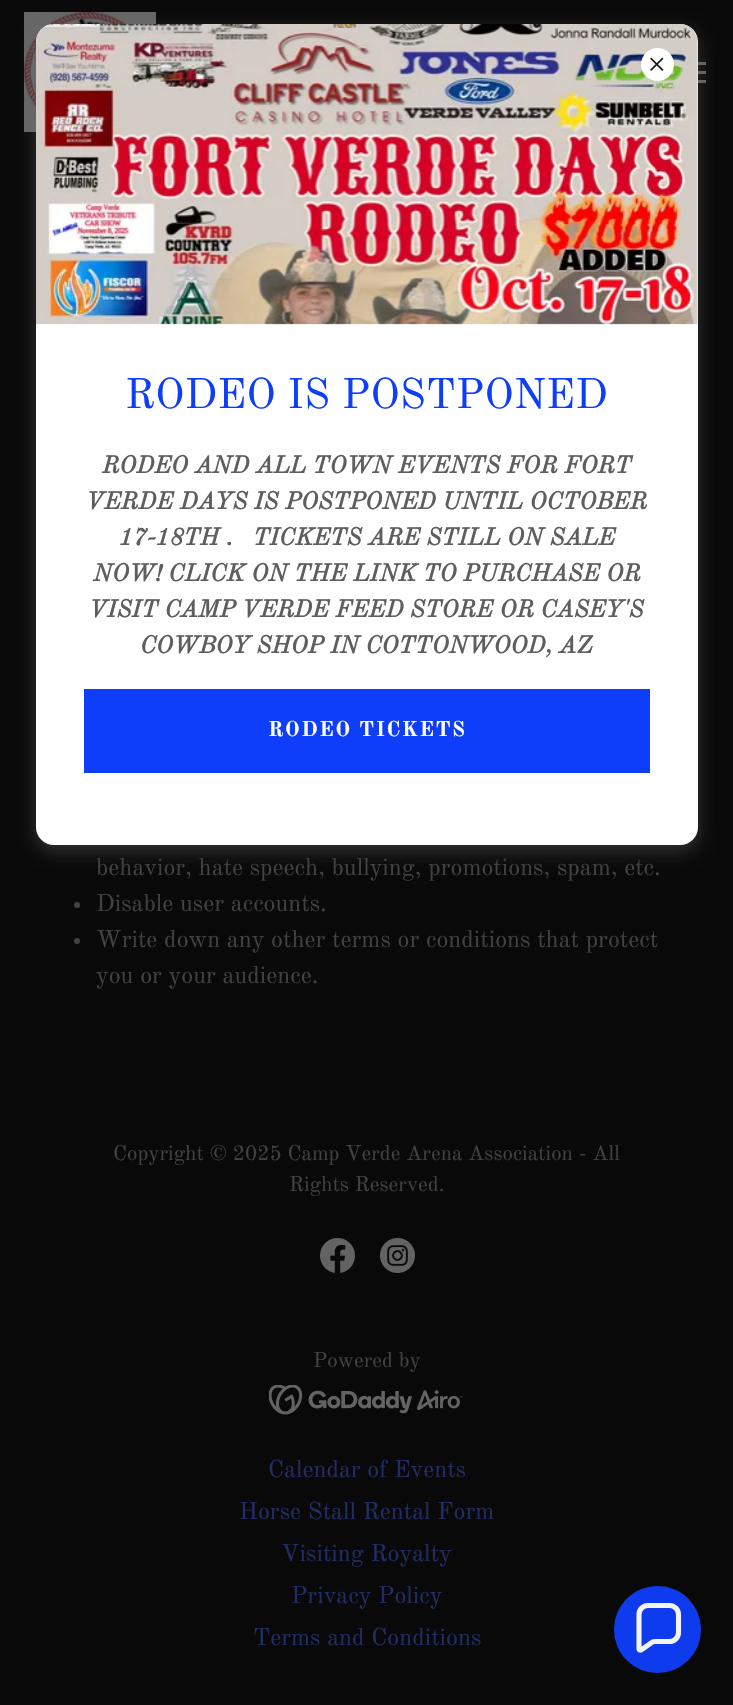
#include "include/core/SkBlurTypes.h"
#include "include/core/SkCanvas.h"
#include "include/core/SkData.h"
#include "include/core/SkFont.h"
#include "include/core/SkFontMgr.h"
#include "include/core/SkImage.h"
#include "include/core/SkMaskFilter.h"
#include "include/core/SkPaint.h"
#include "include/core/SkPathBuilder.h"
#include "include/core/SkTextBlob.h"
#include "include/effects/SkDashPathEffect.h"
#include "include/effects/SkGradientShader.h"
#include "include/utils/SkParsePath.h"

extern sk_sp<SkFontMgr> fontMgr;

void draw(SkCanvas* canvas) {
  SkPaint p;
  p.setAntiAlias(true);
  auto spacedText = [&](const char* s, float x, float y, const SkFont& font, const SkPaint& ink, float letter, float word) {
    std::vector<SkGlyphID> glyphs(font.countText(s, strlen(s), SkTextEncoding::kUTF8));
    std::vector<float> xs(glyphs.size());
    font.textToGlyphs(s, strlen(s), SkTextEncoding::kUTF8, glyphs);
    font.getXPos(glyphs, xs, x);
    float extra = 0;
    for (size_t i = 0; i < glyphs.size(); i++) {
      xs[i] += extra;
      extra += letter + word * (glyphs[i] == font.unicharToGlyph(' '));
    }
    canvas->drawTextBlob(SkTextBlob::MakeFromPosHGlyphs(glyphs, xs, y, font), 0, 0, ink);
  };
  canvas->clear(SkColorSetRGB(9, 9, 9));
  canvas->drawImageRect(SkImages::DeferredFromEncodedData(SkData::MakeFromFileName("images/1.png")), SkRect::MakeLTRB(24, 12, 156, 132), SkSamplingOptions());
  p.setColor(SkColorSetRGB(99, 99, 99));
  canvas->drawRect(SkRect::MakeLTRB(698, 62, 706, 65), p);
  canvas->drawRect(SkRect::MakeLTRB(698, 71, 706, 74), p);
  canvas->drawRect(SkRect::MakeLTRB(698, 80, 706, 83), p);
  p.setColor(SkColorSetARGB(102, 117, 117, 117));
  p.setMaskFilter(SkMaskFilter::MakeBlur(kNormal_SkBlurStyle, 9));
  canvas->drawRoundRect(SkRect::MakeLTRB(36, 30, 698, 851), 18, 18, p);
  p.setMaskFilter(nullptr);
  p.setColor(SK_ColorWHITE);
  canvas->drawRoundRect(SkRect::MakeLTRB(36, 24, 698, 845), 18, 18, p);
  canvas->drawImageRect(SkImages::DeferredFromEncodedData(SkData::MakeFromFileName("images/3.png")), SkRect::MakeLTRB(36, 24, 698, 325), SkSamplingOptions());
  canvas->drawCircle(657.5f, 64.5f, 16.5f, p);
  canvas->drawImageRect(SkImages::DeferredFromEncodedData(SkData::MakeFromFileName("images/2.png")), SkRect::MakeLTRB(650, 57, 664, 71), SkSamplingOptions());
  p.setColor(SkColorSetRGB(15, 62, 250));
  canvas->drawRect(SkRect::MakeLTRB(84, 689, 650, 773), p);
  p.setColor(SkColorSetRGB(66, 66, 66));
  canvas->drawCircle(77, 905, 3, p);
  canvas->drawCircle(77, 941, 3, p);
  canvas->drawImageRect(SkImages::DeferredFromEncodedData(SkData::MakeFromFileName("images/4.png")), SkRect::MakeLTRB(320, 1238, 355, 1273), SkSamplingOptions());
  canvas->drawImageRect(SkImages::DeferredFromEncodedData(SkData::MakeFromFileName("images/5.png")), SkRect::MakeLTRB(380, 1238, 415, 1273), SkSamplingOptions());
  canvas->drawImageRect(SkImages::DeferredFromEncodedData(SkData::MakeFromFileName("images/6.png")), SkRect::MakeLTRB(269, 1385, 463, 1415), SkSamplingOptions());
  p.setColor(SkColorSetRGB(15, 59, 238));
  canvas->drawCircle(657.5f, 1629.5f, 43.5f, p);
  p.setStyle(SkPaint::kStroke_Style);
  p.setStrokeWidth(5.1f);
  p.setColor(SkColorSetRGB(243, 243, 243));
  canvas->drawPath(SkPathBuilder().moveTo(669.5f, 1605.5f).lineTo(648, 1605.5f).cubicTo(643, 1605.5f, 639, 1609.5f, 639, 1614.5f).lineTo(639, 1649).cubicTo(639, 1650, 640, 1650.5f, 641, 1650).lineTo(651, 1643).cubicTo(652, 1642, 653.5f, 1641.5f, 655, 1641.5f).lineTo(669.5f, 1641.5f).cubicTo(674.5f, 1641.5f, 678.5f, 1637.5f, 678.5f, 1632.5f).lineTo(678.5f, 1614.5f).cubicTo(678.5f, 1609.5f, 674.5f, 1605.5f, 669.5f, 1605.5f).close().detach(), p);
  SkFont font1(fontMgr->matchFamilyStyle("Old Standard TT", SkFontStyle::Normal()), 42);
  font1.setSubpixel(true);
  p.setStyle(SkPaint::kFill_Style);
  p.setColor(SkColorSetRGB(15, 62, 250));
  canvas->drawString("RODEO IS POSTPONED", 125, 408, font1, p);
  SkFont font2(fontMgr->matchFamilyStyle("Old Standard TT", SkFontStyle::BoldItalic()), 24);
  font2.setSubpixel(true);
  p.setColor(SkColorSetRGB(94, 94, 94));
  canvas->drawString("RODEO AND ALL TOWN EVENTS FOR FORT", 102, 473, font2, p);
  canvas->drawString("VERDE DAYS IS POSTPONED UNTIL OCTOBER", 86, 509, font2, p);
  canvas->drawString("17-18TH .   TICKETS ARE STILL ON SALE", 119, 545, font2, p);
  canvas->drawString("NOW! CLICK ON THE LINK TO PURCHASE OR", 93, 581, font2, p);
  canvas->drawString("VISIT CAMP VERDE FEED STORE OR CASEY'S", 89, 617, font2, p);
  canvas->drawString("COWBOY SHOP IN COTTONWOOD, AZ", 140, 653, font2, p);
  SkFont font3(fontMgr->matchFamilyStyle("Old Standard TT", SkFontStyle::Bold()), 21);
  font3.setSubpixel(true);
  p.setColor(SK_ColorWHITE);
  spacedText("RODEO TICKETS", 268, 736, font3, p, 1.5f, 0);
  SkFont font4(fontMgr->matchFamilyStyle("Old Standard TT", SkFontStyle::Normal()), 24);
  font4.setSubpixel(true);
  p.setColor(SkColorSetRGB(66, 66, 66));
  canvas->drawString("behavior, hate speech, bullying, promotions, spam, etc.", 96, 875, font4, p);
  canvas->drawString("Disable user accounts.", 96, 911, font4, p);
  canvas->drawString("Write down any other terms or conditions that protect", 96, 947, font4, p);
  canvas->drawString("you or your audience.", 96, 983, font4, p);
  SkFont font5(fontMgr->matchFamilyStyle("Old Standard TT", SkFontStyle::Normal()), 21);
  font5.setSubpixel(true);
  canvas->drawString("Copyright © 2025 Camp Verde Arena Association - All", 113, 1160, font5, p);
  canvas->drawString("Rights Reserved.", 289, 1191, font5, p);
  canvas->drawString("Powered by", 313, 1367, font5, p);
  p.setColor(SkColorSetRGB(33, 46, 102));
  canvas->drawString("Calendar of Events", 268, 1477, font4, p);
  canvas->drawString("Horse Stall Rental Form", 239, 1519, font4, p);
  canvas->drawString("Visiting Royalty", 281, 1561, font4, p);
  canvas->drawString("Privacy Policy", 291, 1603, font4, p);
  canvas->drawString("Terms and Conditions", 253, 1645, font4, p);
}
